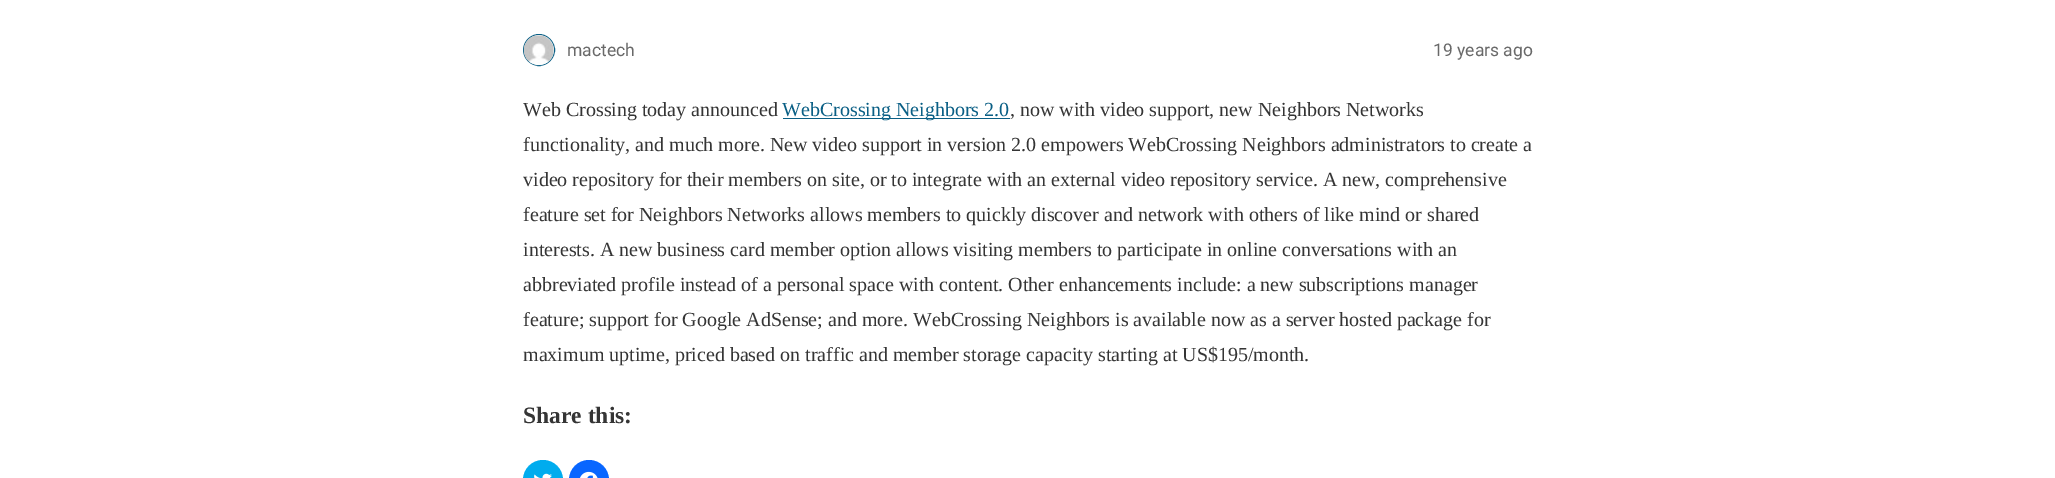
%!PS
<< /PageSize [2055 478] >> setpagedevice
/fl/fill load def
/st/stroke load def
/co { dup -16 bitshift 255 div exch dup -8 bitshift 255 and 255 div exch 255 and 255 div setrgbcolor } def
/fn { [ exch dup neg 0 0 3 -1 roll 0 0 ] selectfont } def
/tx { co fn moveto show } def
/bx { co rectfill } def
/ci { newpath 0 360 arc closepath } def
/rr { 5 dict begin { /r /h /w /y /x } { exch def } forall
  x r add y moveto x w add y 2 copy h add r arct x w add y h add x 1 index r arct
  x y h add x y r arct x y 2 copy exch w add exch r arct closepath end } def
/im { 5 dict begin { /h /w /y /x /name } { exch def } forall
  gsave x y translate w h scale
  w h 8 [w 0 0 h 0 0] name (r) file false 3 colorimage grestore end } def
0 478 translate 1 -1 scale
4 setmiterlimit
0 0 2055 478 16#FFFFFF bx
16#0A5F85 co
539 50 15.5 ci st
(media/1.raw) 523 35 31 31 im
783 118 227 1 16#0A5F85 bx
16#00ACEE co
523 460 40 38 20 rr fl
(media/2.raw) 534 473 18 5 im
16#0866FF co
569 460 40 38 20 rr fl
(media/3.raw) 580 471 18 7 im
(mactech) 567 56 /Roboto-Regular 17.5 16#696969 tx
(19 years ago) 1433 56 /Roboto-Regular 17.5 16#696969 tx
(Web Crossing today announced) 523 116 /LiberationSerif-Regular 20 16#353535 tx
(WebCrossing Neighbors 2.0) 782 116 /LiberationSerif-Regular 20 16#0A5F85 tx
(, now with video support, new Neighbors Networks) 1010 116 /LiberationSerif-Regular 20 16#353535 tx
(functionality, and much more. New video support in version 2.0 empowers WebCrossing Neighbors administrators to create a) 523 151 /LiberationSerif-Regular 20 16#353535 tx
(video repository for their members on site, or to integrate with an external video repository service. A new, comprehensive) 523 186 /LiberationSerif-Regular 20 16#353535 tx
(feature set for Neighbors Networks allows members to quickly discover and network with others of like mind or shared) 523 221 /LiberationSerif-Regular 20 16#353535 tx
(interests. A new business card member option allows visiting members to participate in online conversations with an) 523 256 /LiberationSerif-Regular 20 16#353535 tx
(abbreviated profile instead of a personal space with content. Other enhancements include: a new subscriptions manager) 523 291 /LiberationSerif-Regular 20 16#353535 tx
(feature; support for Google AdSense; and more. WebCrossing Neighbors is available now as a server hosted package for) 523 326 /LiberationSerif-Regular 20 16#353535 tx
(maximum uptime, priced based on traffic and member storage capacity starting at US$195/month.) 523 361 /LiberationSerif-Regular 20 16#353535 tx
(Share this:) 523 423 /LiberationSerif-Bold 23.5 16#353535 tx
showpage
